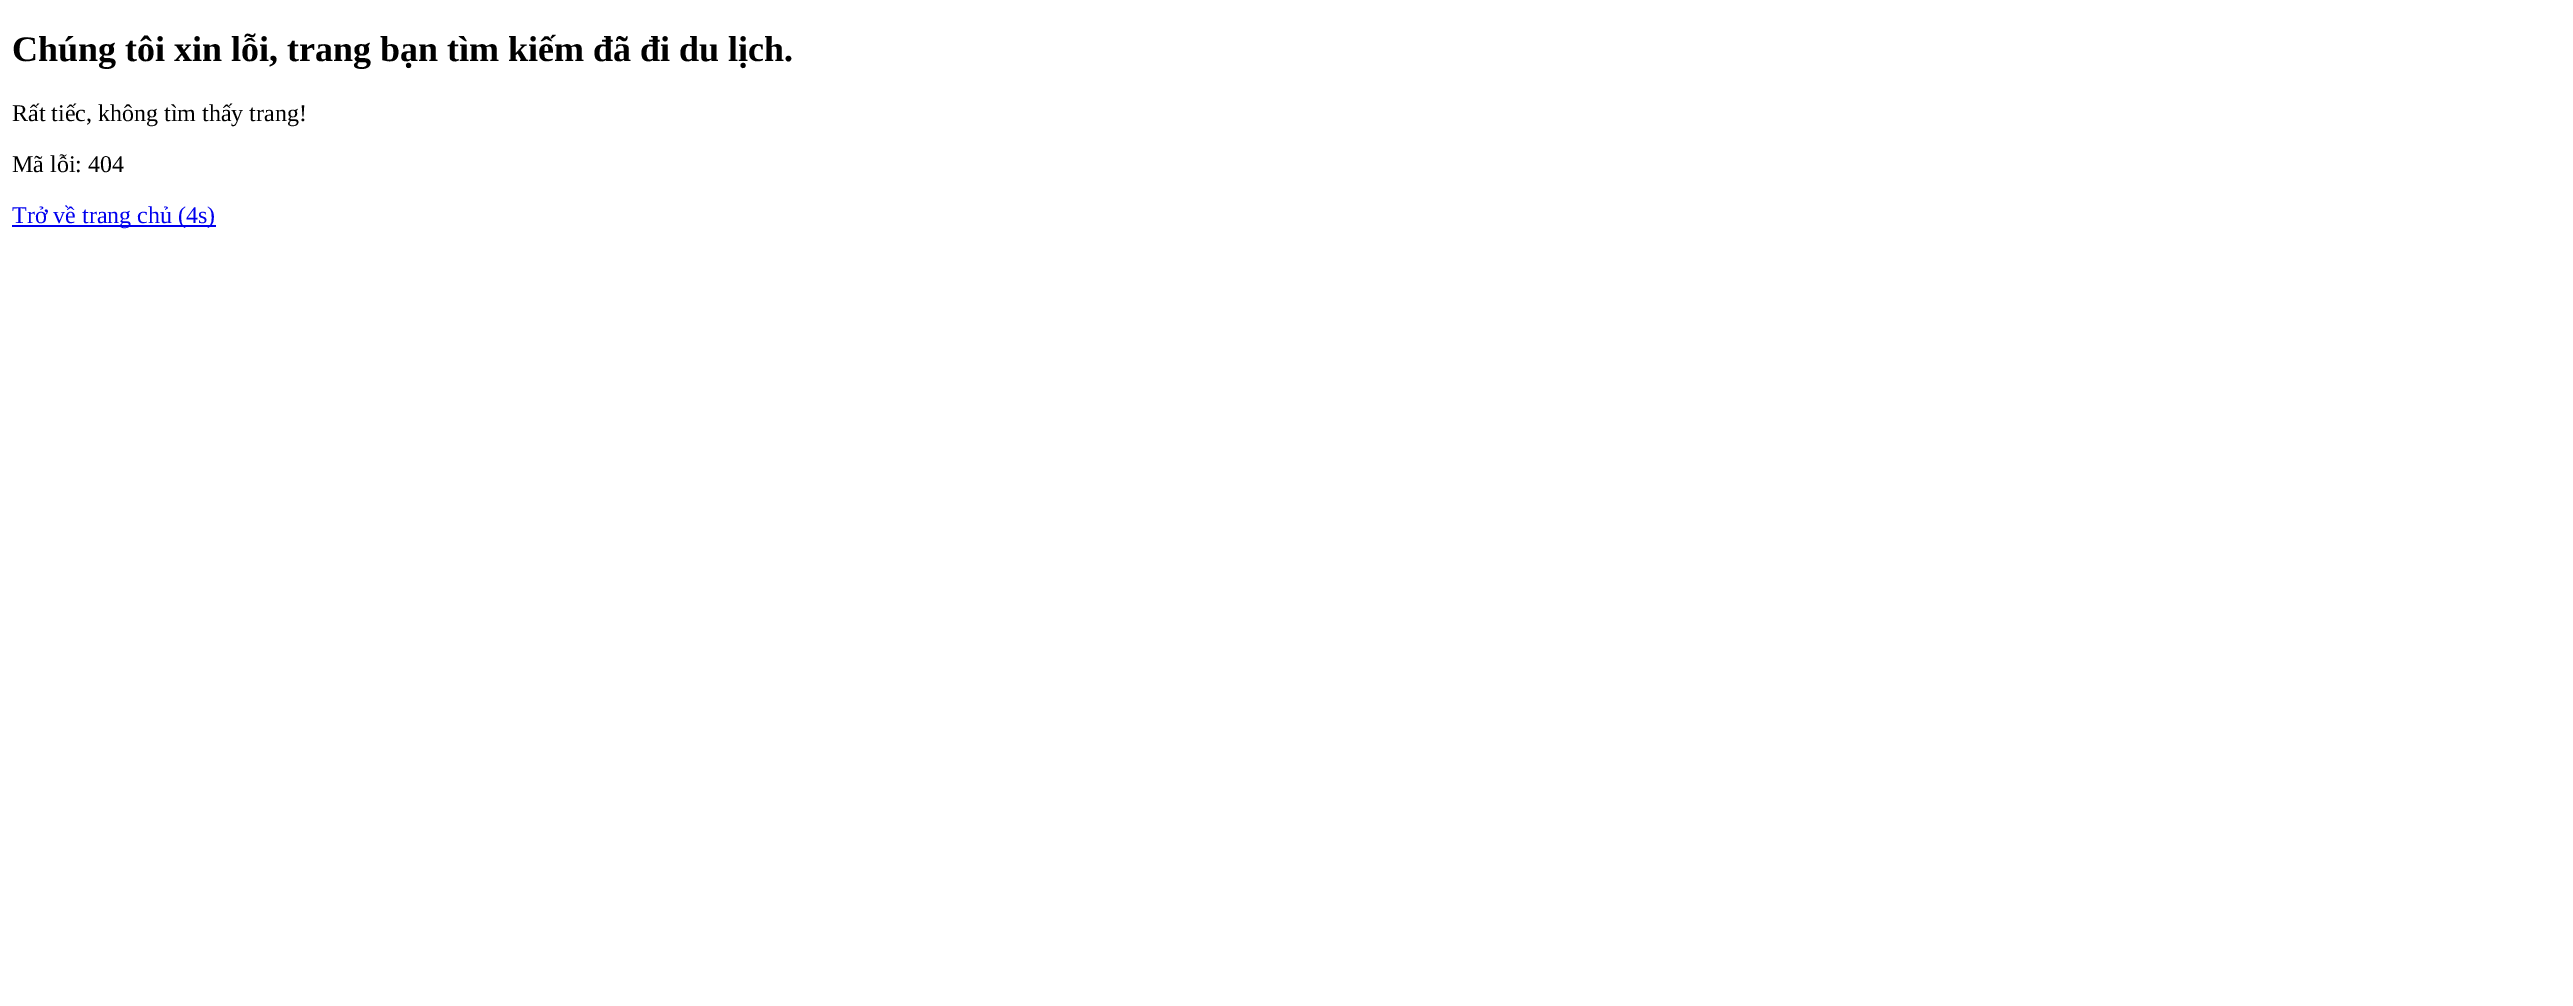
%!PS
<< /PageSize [2573 1006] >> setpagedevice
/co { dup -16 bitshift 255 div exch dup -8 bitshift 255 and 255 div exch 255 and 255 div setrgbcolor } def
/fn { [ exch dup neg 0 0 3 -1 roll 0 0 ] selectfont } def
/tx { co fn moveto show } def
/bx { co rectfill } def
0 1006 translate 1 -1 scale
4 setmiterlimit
0 0 2573 1006 16#FFFFFF bx
12 225 204 2 16#0000EE bx
(Chúng tôi xin lỗi, trang bạn tìm kiếm đã đi du lịch.) 12 61 /LiberationSerif-Bold 36 16#000000 tx
(Rất tiếc, không tìm thấy trang!) 12 121 /LiberationSerif-Regular 24 16#000000 tx
(Mã lỗi: 404) 12 172 /LiberationSerif-Regular 24 16#000000 tx
(Trở về trang chủ \(4s\)) 12 223 /LiberationSerif-Regular 24 16#0000EE tx
showpage
